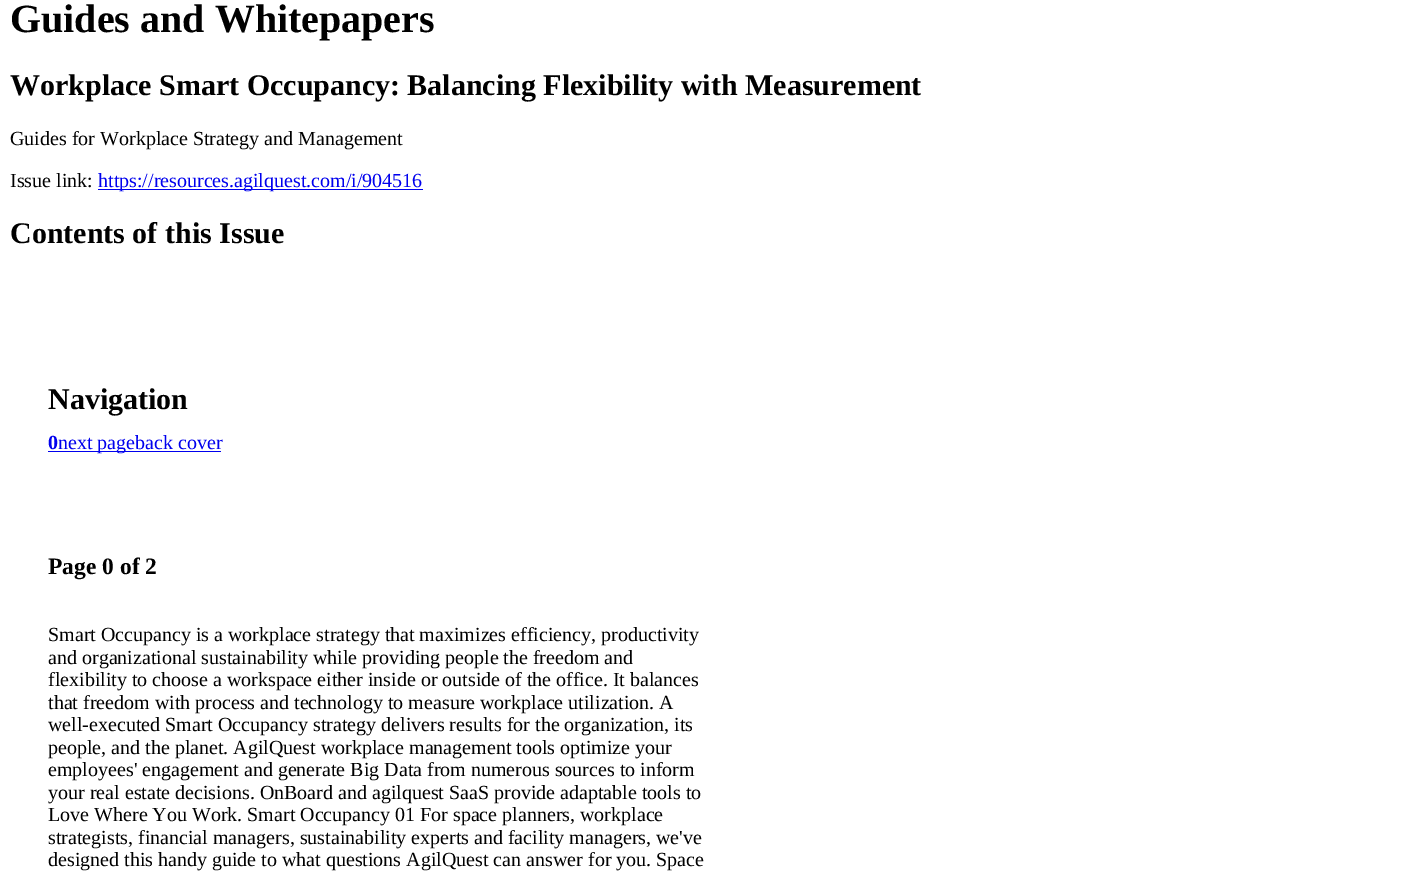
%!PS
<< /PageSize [1402 883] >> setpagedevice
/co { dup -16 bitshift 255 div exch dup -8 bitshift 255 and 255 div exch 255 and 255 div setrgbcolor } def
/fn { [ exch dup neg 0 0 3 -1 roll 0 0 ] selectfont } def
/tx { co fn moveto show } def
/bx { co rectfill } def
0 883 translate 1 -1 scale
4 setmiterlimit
0 0 1402 883 16#FFFFFF bx
98 189 325 1 16#0000EE bx
48 451 173 1 16#0000EE bx
(Guides and Whitepapers) 10 32 /LiberationSerif-Bold 40 16#000000 tx
(Workplace Smart Occupancy: Balancing Flexibility with Measurement) 10 95 /LiberationSerif-Bold 30 16#000000 tx
(Guides for Workplace Strategy and Management) 10 145 /LiberationSerif-Regular 20 16#000000 tx
(Issue link:) 10 187 /LiberationSerif-Regular 20 16#000000 tx
(https://resources.agilquest.com/i/904516) 98 187 /LiberationSerif-Regular 20 16#0000EE tx
(Contents of this Issue) 10 243 /LiberationSerif-Bold 30 16#000000 tx
(Navigation) 48 409 /LiberationSerif-Bold 30 16#000000 tx
(0) 48 449 /LiberationSerif-Bold 20 16#0000EE tx
(next pageback cover) 58 449 /LiberationSerif-Regular 20 16#0000EE tx
(Page 0 of 2) 48 574 /LiberationSerif-Bold 23.5 16#000000 tx
(Smart Occupancy is a workplace strategy that maximizes efficiency, productivity) 48 641 /LiberationSerif-Regular 20 16#000000 tx
(and organizational sustainability while providing people the freedom and) 48 664 /LiberationSerif-Regular 20 16#000000 tx
(flexibility to choose a workspace either inside or outside of the office. It balances) 48 686 /LiberationSerif-Regular 20 16#000000 tx
(that freedom with process and technology to measure workplace utilization. A) 48 709 /LiberationSerif-Regular 20 16#000000 tx
(well-executed Smart Occupancy strategy delivers results for the organization, its) 48 731 /LiberationSerif-Regular 20 16#000000 tx
(people, and the planet. AgilQuest workplace management tools optimize your) 48 754 /LiberationSerif-Regular 20 16#000000 tx
(employees' engagement and generate Big Data from numerous sources to inform) 48 776 /LiberationSerif-Regular 20 16#000000 tx
(your real estate decisions. OnBoard and agilquest SaaS provide adaptable tools to) 48 799 /LiberationSerif-Regular 20 16#000000 tx
(Love Where You Work. Smart Occupancy 01 For space planners, workplace) 48 821 /LiberationSerif-Regular 20 16#000000 tx
(strategists, financial managers, sustainability experts and facility managers, we've) 48 844 /LiberationSerif-Regular 20 16#000000 tx
(designed this handy guide to what questions AgilQuest can answer for you. Space) 48 866 /LiberationSerif-Regular 20 16#000000 tx
showpage
